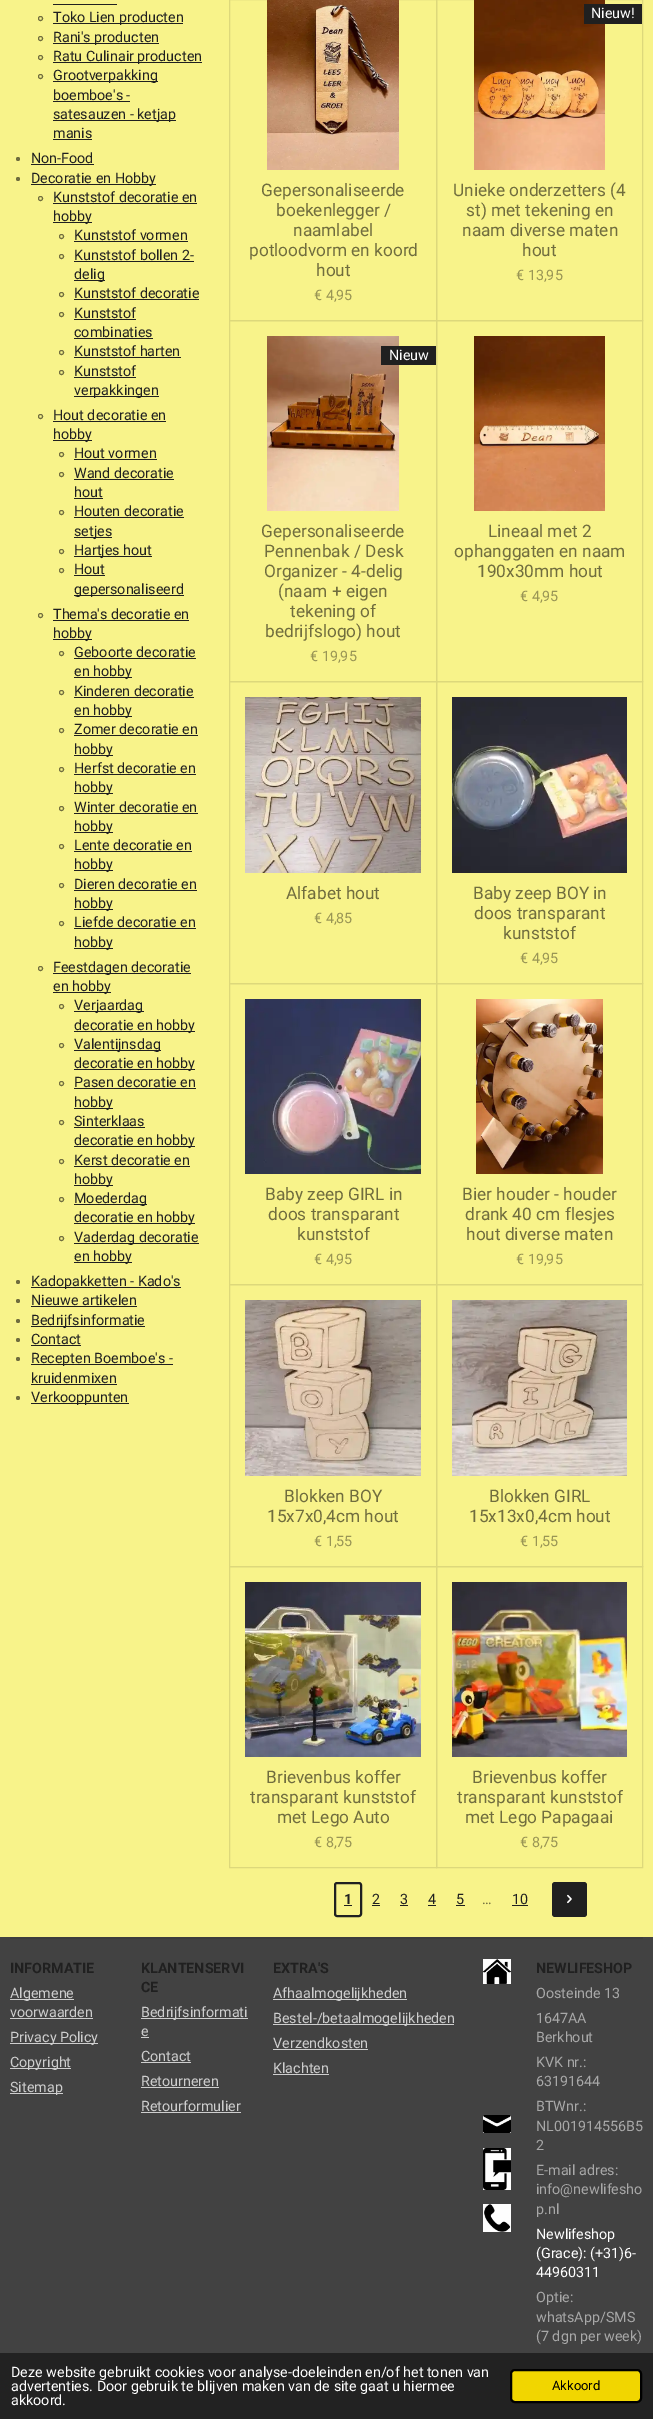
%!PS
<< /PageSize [653 2419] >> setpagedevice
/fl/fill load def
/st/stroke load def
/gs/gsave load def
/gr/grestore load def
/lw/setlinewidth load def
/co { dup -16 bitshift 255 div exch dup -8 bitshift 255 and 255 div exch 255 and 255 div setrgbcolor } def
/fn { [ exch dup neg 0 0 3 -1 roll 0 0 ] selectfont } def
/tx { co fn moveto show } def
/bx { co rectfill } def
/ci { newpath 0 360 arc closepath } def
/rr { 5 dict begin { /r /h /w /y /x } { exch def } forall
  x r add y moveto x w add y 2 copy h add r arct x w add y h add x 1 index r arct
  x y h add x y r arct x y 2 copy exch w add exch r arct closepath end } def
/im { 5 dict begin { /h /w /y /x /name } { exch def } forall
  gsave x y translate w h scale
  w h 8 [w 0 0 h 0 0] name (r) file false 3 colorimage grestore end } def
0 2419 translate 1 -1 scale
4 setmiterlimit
0 0 653 2419 16#F8F38A bx
53 4 64 1 16#202020 bx
16#706D3E co
40.5 18.5 2 ci st
53 23 130 1 16#202020 bx
16#706D3E co
40.5 38.5 2 ci st
53 43 106 1 16#202020 bx
16#706D3E co
40.5 57.5 2 ci st
53 62 149 1 16#202020 bx
16#706D3E co
40.5 76.5 2 ci st
53 81 105 1 16#202020 bx
53 101 77 1 16#202020 bx
53 120 123 1 16#202020 bx
53 139 39 1 16#202020 bx
16#706D3E co
18 159 2 ci fl
31 164 63 1 16#202020 bx
16#706D3E co
18 179 2 ci fl
31 184 125 1 16#202020 bx
16#706D3E co
40.5 198.5 2 ci st
53 203 144 1 16#202020 bx
53 222 39 1 16#202020 bx
16#706D3E co
61.5 236.5 2 ci st
74 241 114 1 16#202020 bx
16#706D3E co
61.5 256.5 2 ci st
74 261 120 1 16#202020 bx
74 280 31 1 16#202020 bx
16#706D3E co
61.5 294.5 2 ci st
74 299 125 1 16#202020 bx
16#706D3E co
61.5 314.5 2 ci st
74 319 62 1 16#202020 bx
74 338 79 1 16#202020 bx
16#706D3E co
61.5 352.5 2 ci st
74 357 107 1 16#202020 bx
16#706D3E co
61.5 372.5 2 ci st
74 377 62 1 16#202020 bx
74 396 85 1 16#202020 bx
16#706D3E co
40.5 416.5 2 ci st
53 421 113 1 16#202020 bx
53 440 39 1 16#202020 bx
16#706D3E co
61.5 454.5 2 ci st
74 459 83 1 16#202020 bx
16#706D3E co
61.5 474.5 2 ci st
74 479 100 1 16#202020 bx
74 498 29 1 16#202020 bx
16#706D3E co
61.5 512.5 2 ci st
74 517 110 1 16#202020 bx
74 537 38 1 16#202020 bx
16#706D3E co
61.5 551.5 2 ci st
74 556 78 1 16#202020 bx
16#706D3E co
61.5 570.5 2 ci st
74 575 31 1 16#202020 bx
74 595 110 1 16#202020 bx
16#706D3E co
40.5 615.5 2 ci st
53 620 136 1 16#202020 bx
53 639 39 1 16#202020 bx
16#706D3E co
61.5 653.5 2 ci st
74 658 122 1 16#202020 bx
74 677 58 1 16#202020 bx
16#706D3E co
61.5 692.5 2 ci st
74 697 120 1 16#202020 bx
74 716 58 1 16#202020 bx
16#706D3E co
61.5 730.5 2 ci st
74 735 124 1 16#202020 bx
74 755 39 1 16#202020 bx
16#706D3E co
61.5 769.5 2 ci st
74 774 122 1 16#202020 bx
74 793 39 1 16#202020 bx
16#706D3E co
61.5 808.5 2 ci st
74 813 124 1 16#202020 bx
74 832 39 1 16#202020 bx
16#706D3E co
61.5 846.5 2 ci st
74 851 118 1 16#202020 bx
74 870 39 1 16#202020 bx
16#706D3E co
61.5 885.5 2 ci st
74 890 123 1 16#202020 bx
74 909 39 1 16#202020 bx
16#706D3E co
61.5 923.5 2 ci st
74 928 122 1 16#202020 bx
74 948 39 1 16#202020 bx
16#706D3E co
40.5 968.5 2 ci st
53 973 138 1 16#202020 bx
53 992 58 1 16#202020 bx
16#706D3E co
61.5 1006.5 2 ci st
74 1011 70 1 16#202020 bx
74 1031 121 1 16#202020 bx
16#706D3E co
61.5 1045.5 2 ci st
74 1050 87 1 16#202020 bx
74 1069 121 1 16#202020 bx
16#706D3E co
61.5 1083.5 2 ci st
74 1088 122 1 16#202020 bx
74 1108 39 1 16#202020 bx
16#706D3E co
61.5 1122.5 2 ci st
74 1127 71 1 16#202020 bx
74 1146 121 1 16#202020 bx
16#706D3E co
61.5 1161.5 2 ci st
74 1166 116 1 16#202020 bx
74 1185 39 1 16#202020 bx
16#706D3E co
61.5 1199.5 2 ci st
74 1204 73 1 16#202020 bx
74 1223 121 1 16#202020 bx
16#706D3E co
61.5 1238.5 2 ci st
74 1243 125 1 16#202020 bx
74 1262 58 1 16#202020 bx
16#706D3E co
18 1282 2 ci fl
31 1287 150 1 16#202020 bx
16#706D3E co
18 1301 2 ci fl
31 1306 106 1 16#202020 bx
16#706D3E co
18 1321 2 ci fl
31 1326 114 1 16#202020 bx
16#706D3E co
18 1340 2 ci fl
31 1345 50 1 16#202020 bx
16#706D3E co
18 1359 2 ci fl
31 1364 142 1 16#202020 bx
31 1384 86 1 16#202020 bx
16#706D3E co
18 1398 2 ci fl
31 1403 98 1 16#202020 bx
16#DDD87B co
229.5 -.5 207 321 rectstroke
(media/1.raw) 267 0 132 170 im
436.5 -.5 206 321 rectstroke
(media/2.raw) 474 0 131 170 im
584 4 58 20 16#202020 bx
16#DDD87B co
229.5 320.5 207 361 rectstroke
(media/3.raw) 267 336 132 175 im
381 346 55 19 16#202020 bx
16#DDD87B co
436.5 320.5 206 361 rectstroke
(media/4.raw) 474 336 131 175 im
229.5 681.5 207 302 rectstroke
(media/5.raw) 245 697 176 176 im
436.5 681.5 206 302 rectstroke
(media/6.raw) 452 697 175 176 im
229.5 983.5 207 301 rectstroke
(media/7.raw) 245 999 176 175 im
436.5 983.5 206 301 rectstroke
(media/8.raw) 476 999 127 175 im
229.5 1284.5 207 282 rectstroke
(media/9.raw) 245 1300 176 176 im
436.5 1284.5 206 282 rectstroke
(media/10.raw) 452 1300 175 176 im
229.5 1566.5 207 301 rectstroke
(media/11.raw) 245 1582 176 175 im
436.5 1566.5 206 301 rectstroke
(media/12.raw) 452 1582 175 175 im
16#202020 co
2 lw
335 1883 26 33 2 rr st
344 1905 8 1 16#202020 bx
372 1905 8 1 16#202020 bx
400 1905 8 1 16#202020 bx
428 1905 8 1 16#202020 bx
456 1905 9 1 16#202020 bx
512 1905 16 1 16#202020 bx
552 1882 35 35 3 rr fl
(media/13.raw) 567 1894 5 10 im
0 1937 653 416 16#424242 bx
10 1937 633 2 16#3D3D3D bx
10 1999 64 1 16#CECECE bx
10 2018 83 1 16#CECECE bx
10 2043 88 1 16#CECECE bx
10 2068 61 1 16#CECECE bx
10 2093 53 1 16#CECECE bx
141 2018 107 1 16#CECECE bx
141 2037 8 1 16#CECECE bx
141 2062 50 1 16#CECECE bx
141 2087 78 1 16#CECECE bx
141 2112 100 1 16#CECECE bx
273 1999 134 1 16#CECECE bx
273 2024 181 1 16#CECECE bx
273 2049 95 1 16#CECECE bx
273 2074 56 1 16#CECECE bx
(media/14.raw) 483 1959 28 25 im
(media/15.raw) 483 2115 28 18 im
(media/16.raw) 483 2148 28 42 im
(media/17.raw) 483 2204 28 28 im
0 2353 653 66 16#222222 bx
16#F1D600 co
511 2370 130 32 4 rr gs fl gr
16#000000 co
st
(Toko Lien producten) 53 22 /Roboto-Regular 14.3 16#202020 tx
(Rani's producten) 53 42 /Roboto-Regular 14.3 16#202020 tx
(Ratu Culinair producten) 53 61 /Roboto-Regular 14.3 16#202020 tx
(Grootverpakking) 53 80 /Roboto-Regular 14.3 16#202020 tx
(boemboe's -) 53 100 /Roboto-Regular 14.3 16#202020 tx
(satesauzen - ketjap) 53 119 /Roboto-Regular 14.3 16#202020 tx
(manis) 53 138 /Roboto-Regular 14.3 16#202020 tx
(Non-Food) 31 163 /Roboto-Regular 14.3 16#202020 tx
(Decoratie en Hobby) 31 183 /Roboto-Regular 14.3 16#202020 tx
(Kunststof decoratie en) 53 202 /Roboto-Regular 14.3 16#202020 tx
(hobby) 53 221 /Roboto-Regular 14.3 16#202020 tx
(Kunststof vormen) 74 240 /Roboto-Regular 14.3 16#202020 tx
(Kunststof bollen 2-) 74 260 /Roboto-Regular 14.3 16#202020 tx
(delig) 74 279 /Roboto-Regular 14.3 16#202020 tx
(Kunststof decoratie) 74 298 /Roboto-Regular 14.3 16#202020 tx
(Kunststof) 74 318 /Roboto-Regular 14.3 16#202020 tx
(combinaties) 74 337 /Roboto-Regular 14.3 16#202020 tx
(Kunststof harten) 74 356 /Roboto-Regular 14.3 16#202020 tx
(Kunststof) 74 376 /Roboto-Regular 14.3 16#202020 tx
(verpakkingen) 74 395 /Roboto-Regular 14.3 16#202020 tx
(Hout decoratie en) 53 420 /Roboto-Regular 14.3 16#202020 tx
(hobby) 53 439 /Roboto-Regular 14.3 16#202020 tx
(Hout vormen) 74 458 /Roboto-Regular 14.3 16#202020 tx
(Wand decoratie) 74 478 /Roboto-Regular 14.3 16#202020 tx
(hout) 74 497 /Roboto-Regular 14.3 16#202020 tx
(Houten decoratie) 74 516 /Roboto-Regular 14.3 16#202020 tx
(setjes) 74 536 /Roboto-Regular 14.3 16#202020 tx
(Hartjes hout) 74 555 /Roboto-Regular 14.3 16#202020 tx
(Hout) 74 574 /Roboto-Regular 14.3 16#202020 tx
(gepersonaliseerd) 74 594 /Roboto-Regular 14.3 16#202020 tx
(Thema's decoratie en) 53 619 /Roboto-Regular 14.3 16#202020 tx
(hobby) 53 638 /Roboto-Regular 14.3 16#202020 tx
(Geboorte decoratie) 74 657 /Roboto-Regular 14.3 16#202020 tx
(en hobby) 74 676 /Roboto-Regular 14.3 16#202020 tx
(Kinderen decoratie) 74 696 /Roboto-Regular 14.3 16#202020 tx
(en hobby) 74 715 /Roboto-Regular 14.3 16#202020 tx
(Zomer decoratie en) 74 734 /Roboto-Regular 14.3 16#202020 tx
(hobby) 74 754 /Roboto-Regular 14.3 16#202020 tx
(Herfst decoratie en) 74 773 /Roboto-Regular 14.3 16#202020 tx
(hobby) 74 792 /Roboto-Regular 14.3 16#202020 tx
(Winter decoratie en) 74 812 /Roboto-Regular 14.3 16#202020 tx
(hobby) 74 831 /Roboto-Regular 14.3 16#202020 tx
(Lente decoratie en) 74 850 /Roboto-Regular 14.3 16#202020 tx
(hobby) 74 869 /Roboto-Regular 14.3 16#202020 tx
(Dieren decoratie en) 74 889 /Roboto-Regular 14.3 16#202020 tx
(hobby) 74 908 /Roboto-Regular 14.3 16#202020 tx
(Liefde decoratie en) 74 927 /Roboto-Regular 14.3 16#202020 tx
(hobby) 74 947 /Roboto-Regular 14.3 16#202020 tx
(Feestdagen decoratie) 53 972 /Roboto-Regular 14.3 16#202020 tx
(en hobby) 53 991 /Roboto-Regular 14.3 16#202020 tx
(Verjaardag) 74 1010 /Roboto-Regular 14.3 16#202020 tx
(decoratie en hobby) 74 1030 /Roboto-Regular 14.3 16#202020 tx
(Valentijnsdag) 74 1049 /Roboto-Regular 14.3 16#202020 tx
(decoratie en hobby) 74 1068 /Roboto-Regular 14.3 16#202020 tx
(Pasen decoratie en) 74 1087 /Roboto-Regular 14.3 16#202020 tx
(hobby) 74 1107 /Roboto-Regular 14.3 16#202020 tx
(Sinterklaas) 74 1126 /Roboto-Regular 14.3 16#202020 tx
(decoratie en hobby) 74 1145 /Roboto-Regular 14.3 16#202020 tx
(Kerst decoratie en) 74 1165 /Roboto-Regular 14.3 16#202020 tx
(hobby) 74 1184 /Roboto-Regular 14.3 16#202020 tx
(Moederdag) 74 1203 /Roboto-Regular 14.3 16#202020 tx
(decoratie en hobby) 74 1222 /Roboto-Regular 14.3 16#202020 tx
(Vaderdag decoratie) 74 1242 /Roboto-Regular 14.3 16#202020 tx
(en hobby) 74 1261 /Roboto-Regular 14.3 16#202020 tx
(Kadopakketten - Kado's) 31 1286 /Roboto-Regular 14.3 16#202020 tx
(Nieuwe artikelen) 31 1305 /Roboto-Regular 14.3 16#202020 tx
(Bedrijfsinformatie) 31 1325 /Roboto-Regular 14.3 16#202020 tx
(Contact) 31 1344 /Roboto-Regular 14.3 16#202020 tx
(Recepten Boemboe's -) 31 1363 /Roboto-Regular 14.3 16#202020 tx
(kruidenmixen) 31 1383 /Roboto-Regular 14.3 16#202020 tx
(Verkooppunten) 31 1402 /Roboto-Regular 14.3 16#202020 tx
(Gepersonaliseerde) 261 196 /Roboto-Regular 17.25 16#706D3E tx
(boekenlegger /) 276 216 /Roboto-Regular 17.25 16#706D3E tx
(naamlabel) 293 236 /Roboto-Regular 17.25 16#706D3E tx
(potloodvorm en koord) 249 256 /Roboto-Regular 17.25 16#706D3E tx
(hout) 316 276 /Roboto-Regular 17.25 16#706D3E tx
(€ 4,95) 314 300 /Roboto-Regular 14.3 16#999555 tx
(Nieuw!) 591 18 /Roboto-Regular 14.3 16#FFFFFF tx
(Unieke onderzetters \(4) 453 196 /Roboto-Regular 17.25 16#706D3E tx
(st\) met tekening en) 466 216 /Roboto-Regular 17.25 16#706D3E tx
(naam diverse maten) 462 236 /Roboto-Regular 17.25 16#706D3E tx
(hout) 522 256 /Roboto-Regular 17.25 16#706D3E tx
(€ 13,95) 516 280 /Roboto-Regular 14.3 16#999555 tx
(Nieuw) 389 360 /Roboto-Regular 14.3 16#FFFFFF tx
(Gepersonaliseerde) 261 537 /Roboto-Regular 17.25 16#706D3E tx
(Pennenbak / Desk) 264 557 /Roboto-Regular 17.25 16#706D3E tx
(Organizer - 4-delig) 264 577 /Roboto-Regular 17.25 16#706D3E tx
(\(naam + eigen) 278 597 /Roboto-Regular 17.25 16#706D3E tx
(tekening of) 290 617 /Roboto-Regular 17.25 16#706D3E tx
(bedrijfslogo\) hout) 265 637 /Roboto-Regular 17.25 16#706D3E tx
(€ 19,95) 310 661 /Roboto-Regular 14.3 16#999555 tx
(Lineaal met 2) 488 537 /Roboto-Regular 17.25 16#706D3E tx
(ophanggaten en naam) 454 557 /Roboto-Regular 17.25 16#706D3E tx
(190x30mm hout) 477 577 /Roboto-Regular 17.25 16#706D3E tx
(€ 4,95) 520 601 /Roboto-Regular 14.3 16#999555 tx
(Alfabet hout) 286 899 /Roboto-Regular 17.25 16#706D3E tx
(€ 4,85) 314 923 /Roboto-Regular 14.3 16#999555 tx
(Baby zeep BOY in) 473 899 /Roboto-Regular 17.25 16#706D3E tx
(doos transparant) 474 919 /Roboto-Regular 17.25 16#706D3E tx
(kunststof) 503 939 /Roboto-Regular 17.25 16#706D3E tx
(€ 4,95) 520 963 /Roboto-Regular 14.3 16#999555 tx
(Baby zeep GIRL in) 265 1200 /Roboto-Regular 17.25 16#706D3E tx
(doos transparant) 268 1220 /Roboto-Regular 17.25 16#706D3E tx
(kunststof) 297 1240 /Roboto-Regular 17.25 16#706D3E tx
(€ 4,95) 314 1264 /Roboto-Regular 14.3 16#999555 tx
(Bier houder - houder) 462 1200 /Roboto-Regular 17.25 16#706D3E tx
(drank 40 cm flesjes) 465 1220 /Roboto-Regular 17.25 16#706D3E tx
(hout diverse maten) 466 1240 /Roboto-Regular 17.25 16#706D3E tx
(€ 19,95) 516 1264 /Roboto-Regular 14.3 16#999555 tx
(Blokken BOY) 284 1502 /Roboto-Regular 17.25 16#706D3E tx
(15x7x0,4cm hout) 267 1522 /Roboto-Regular 17.25 16#706D3E tx
(€ 1,55) 314 1546 /Roboto-Regular 14.3 16#999555 tx
(Blokken GIRL) 489 1502 /Roboto-Regular 17.25 16#706D3E tx
(15x13x0,4cm hout) 469 1522 /Roboto-Regular 17.25 16#706D3E tx
(€ 1,55) 520 1546 /Roboto-Regular 14.3 16#999555 tx
(Brievenbus koffer) 266 1783 /Roboto-Regular 17.25 16#706D3E tx
(transparant kunststof) 250 1803 /Roboto-Regular 17.25 16#706D3E tx
(met Lego Auto) 277 1823 /Roboto-Regular 17.25 16#706D3E tx
(€ 8,75) 314 1847 /Roboto-Regular 14.3 16#999555 tx
(Brievenbus koffer) 472 1783 /Roboto-Regular 17.25 16#706D3E tx
(transparant kunststof) 457 1803 /Roboto-Regular 17.25 16#706D3E tx
(met Lego Papagaai) 465 1823 /Roboto-Regular 17.25 16#706D3E tx
(€ 8,75) 520 1847 /Roboto-Regular 14.3 16#999555 tx
(1) 344 1904 /Roboto-Bold 14.3 16#202020 tx
(2) 372 1904 /Roboto-Regular 14.3 16#202020 tx
(3) 400 1904 /Roboto-Regular 14.3 16#202020 tx
(4) 428 1904 /Roboto-Regular 14.3 16#202020 tx
(5) 456 1904 /Roboto-Regular 14.3 16#202020 tx
(…) 482 1904 /Roboto-Regular 14.3 16#706D3E tx
(10) 512 1904 /Roboto-Regular 14.3 16#202020 tx
(INFORMATIE) 10 1973 /Roboto-Bold 14.3 16#202020 tx
(Algemene) 10 1998 /Roboto-Regular 14.3 16#CECECE tx
(voorwaarden) 10 2017 /Roboto-Regular 14.3 16#CECECE tx
(Privacy Policy) 10 2042 /Roboto-Regular 14.3 16#CECECE tx
(Copyright) 10 2067 /Roboto-Regular 14.3 16#CECECE tx
(Sitemap) 10 2092 /Roboto-Regular 14.3 16#CECECE tx
(KLANTENSERVI) 141 1973 /Roboto-Bold 14.3 16#202020 tx
(CE) 141 1992 /Roboto-Bold 14.3 16#202020 tx
(Bedrijfsinformati) 141 2017 /Roboto-Regular 14.3 16#CECECE tx
(e) 141 2036 /Roboto-Regular 14.3 16#CECECE tx
(Contact) 141 2061 /Roboto-Regular 14.3 16#CECECE tx
(Retourneren) 141 2086 /Roboto-Regular 14.3 16#CECECE tx
(Retourformulier) 141 2111 /Roboto-Regular 14.3 16#CECECE tx
(EXTRA'S) 273 1973 /Roboto-Bold 14.3 16#202020 tx
(Afhaalmogelijkheden) 273 1998 /Roboto-Regular 14.3 16#CECECE tx
(Bestel-/betaalmogelijkheden) 273 2023 /Roboto-Regular 14.3 16#CECECE tx
(Verzendkosten) 273 2048 /Roboto-Regular 14.3 16#CECECE tx
(Klachten) 273 2073 /Roboto-Regular 14.3 16#CECECE tx
(NEWLIFESHOP) 536 1973 /Roboto-Bold 14.3 16#202020 tx
(Oosteinde 13) 536 1998 /Roboto-Regular 14.3 16#A8A8A8 tx
(1647AA) 536 2023 /Roboto-Regular 14.3 16#A8A8A8 tx
(Berkhout) 536 2042 /Roboto-Regular 14.3 16#A8A8A8 tx
(KVK nr.:) 536 2067 /Roboto-Regular 14.3 16#A8A8A8 tx
(63191644) 536 2086 /Roboto-Regular 14.3 16#A8A8A8 tx
(BTWnr.:) 536 2111 /Roboto-Regular 14.3 16#A8A8A8 tx
(NL001914556B5) 536 2131 /Roboto-Regular 14.3 16#A8A8A8 tx
(2) 536 2150 /Roboto-Regular 14.3 16#A8A8A8 tx
(E-mail adres:) 536 2175 /Roboto-Regular 14.3 16#A8A8A8 tx
(info@newlifesho) 536 2194 /Roboto-Regular 14.3 16#A8A8A8 tx
(p.nl) 536 2214 /Roboto-Regular 14.3 16#A8A8A8 tx
(Newlifeshop) 536 2239 /Roboto-Regular 14.3 16#FFFFFF tx
(\(Grace\): \(+31\)6-) 536 2258 /Roboto-Regular 14.3 16#FFFFFF tx
(44960311) 536 2277 /Roboto-Regular 14.3 16#FFFFFF tx
(Optie:) 536 2302 /Roboto-Regular 14.3 16#A8A8A8 tx
(whatsApp/SMS) 536 2322 /Roboto-Regular 14.3 16#A8A8A8 tx
(\(7 dgn per week\)) 536 2341 /Roboto-Regular 14.3 16#A8A8A8 tx
(Deze website gebruikt cookies voor analyse-doeleinden en/of het tonen van) 11 2377 /Roboto-Regular 14.3 16#FFFFFF tx
(advertenties. Door gebruik te blijven maken van de site gaat u hiermee) 11 2391 /Roboto-Regular 14.3 16#FFFFFF tx
(akkoord.) 11 2405 /Roboto-Regular 14.3 16#FFFFFF tx
(Akkoord) 552 2390 /Roboto-Regular 13 16#000000 tx
showpage
